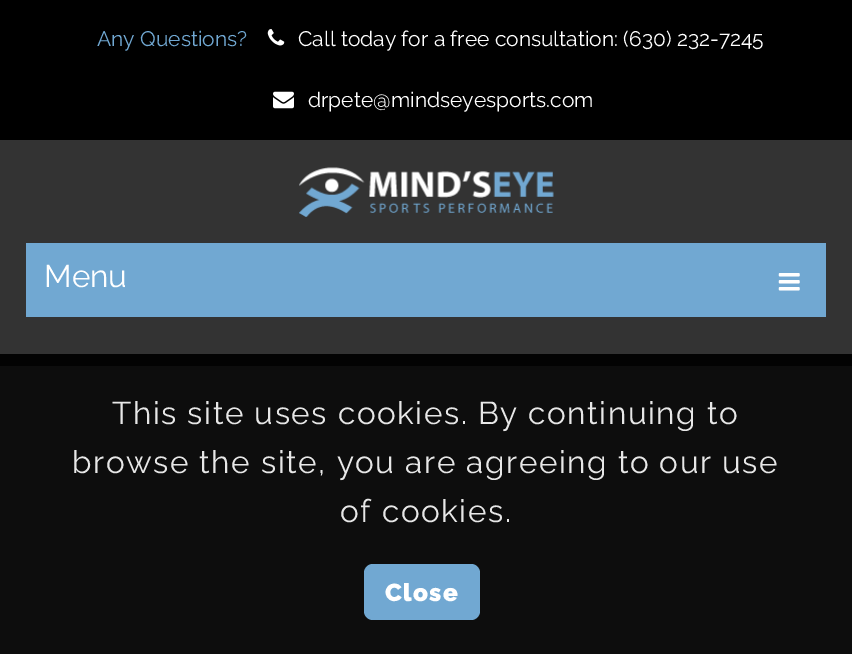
%!PS
<< /PageSize [852 654] >> setpagedevice
/mt/moveto load def
/fl/fill load def
/co { dup -16 bitshift 255 div exch dup -8 bitshift 255 and 255 div exch 255 and 255 div setrgbcolor } def
/fn { [ exch dup neg 0 0 3 -1 roll 0 0 ] selectfont } def
/tx { co fn moveto show } def
/bx { co rectfill } def
/rr { 5 dict begin { /r /h /w /y /x } { exch def } forall
  x r add y moveto x w add y 2 copy h add r arct x w add y h add x 1 index r arct
  x y h add x y r arct x y 2 copy exch w add exch r arct closepath end } def
/im { 5 dict begin { /h /w /y /x /name } { exch def } forall
  gsave x y translate w h scale
  w h 8 [w 0 0 h 0 0] name (r) file false 3 colorimage grestore end } def
0 654 translate 1 -1 scale
4 setmiterlimit
0 0 852 654 16#0D0D0D bx
0 140 852 214 16#333333 bx
0 354 852 12 16#030303 bx
0 0 852 140 16#000000 bx
(media/1.raw) 267 29 18 17 im
(media/2.raw) 273 91 21 18 im
(media/3.raw) 299 167 255 50 im
26 243 800 74 16#71A8D2 bx
(media/4.raw) 778 273 22 18 im
364 564 116 56 9 rr fl
(Any Questions?) 97 46 /Raleway-Thin 21 16#71A8D2 tx
(Call today for a free consultation: \(630\) 232-7245) 298 46 /Raleway-Thin 21 16#FFFFFF tx
(drpete@mindseyesports.com) 308 107 /Raleway-Thin 21 16#FFFFFF tx
(Menu) 44 287 /Raleway-Thin 31.5 16#FFFFFF tx
16#E7E7E7 co
112 424 mt 1.55 0 (This site uses cookies. By continuing to) ashow
72 473 mt 1.55 0 (browse the site, you are agreeing to our use) ashow
340 522 mt 1.55 0 (of cookies.) ashow
/Raleway-Black 24.5 fn
16#FFFFFF co
385 601 mt 1.25 0 (Close) ashow
showpage
